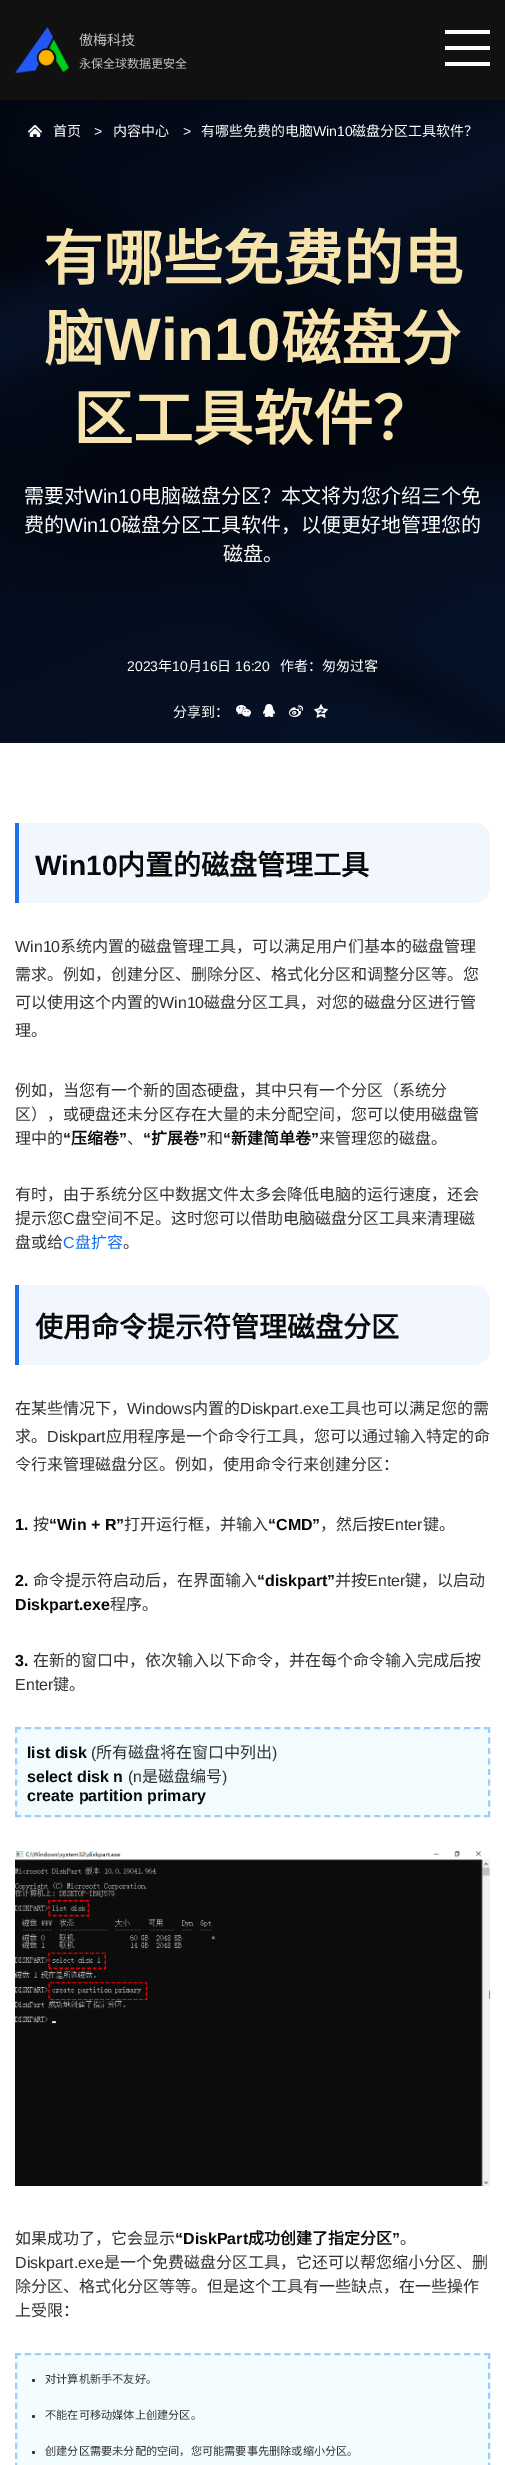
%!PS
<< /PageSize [505 2465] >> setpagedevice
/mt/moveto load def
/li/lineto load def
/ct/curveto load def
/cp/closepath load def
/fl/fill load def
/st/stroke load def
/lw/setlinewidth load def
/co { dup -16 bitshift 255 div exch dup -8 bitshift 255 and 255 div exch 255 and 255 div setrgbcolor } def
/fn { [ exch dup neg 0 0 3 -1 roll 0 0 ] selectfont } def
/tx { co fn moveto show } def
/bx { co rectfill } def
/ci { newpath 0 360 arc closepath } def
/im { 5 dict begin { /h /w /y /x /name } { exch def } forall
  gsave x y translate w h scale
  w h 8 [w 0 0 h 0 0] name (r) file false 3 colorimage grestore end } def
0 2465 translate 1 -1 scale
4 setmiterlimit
0 0 505 2465 16#FFFFFF bx
0 0 505 100 16#111111 bx
(media/1.raw) 15 27 54 46 im
445 30 45 4 16#FFFFFF bx
445 46 45 4 16#FFFFFF bx
445 62 45 4 16#FFFFFF bx
(media/2.raw) 0 100 505 643 im
(media/3.raw) 28 125 14 12 im
(media/4.raw) 236 705 15 12 im
(media/5.raw) 263 704 12 13 im
(media/6.raw) 289 705 14 12 im
(media/7.raw) 314 704 14 14 im
16#F2F6FF co
15 823 mt 474 823 li 483 823 490 830 490 839 ct 490 887 li 490 896 483 903 474 903 ct 15 903 li cp fl
15 823 4 80 16#1D70EC bx
16#F2F6FF co
15 1285 mt 474 1285 li 483 1285 490 1292 490 1301 ct 490 1349 li 490 1358 483 1365 474 1365 ct 15 1365 li cp fl
15 1285 4 80 16#1D70EC bx
15 1727 475 90 16#F2FCFF bx
16#9BCEFD co
2 lw
[6 3.98] 0 setdash
15 1728 mt 490 1728 li st
[6 4.5] 0 setdash
489 1727 mt 489 1817 li st
[6 3.98] 0 setdash
15 1816 mt 490 1816 li st
[6 4.5] 0 setdash
16 1727 mt 16 1817 li st
(media/8.raw) 15 1850 475 336 im
15 2353 475 112 16#F3FCFE bx
16#9BCEFD co
[6 3.98] 0 setdash
15 2354 mt 490 2354 li st
[6 4] 0 setdash
489 2353 mt 489 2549 li st
16 2353 mt 16 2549 li st
16#333333 co
33.5 2380.5 1.5 ci fl
33.5 2416.5 1.5 ci fl
33.5 2452.5 1.5 ci fl
(傲梅科技) 79 45 /NotoSansCJKSC-Regular 14 16#C3C3C3 tx
(永保全球数据更安全) 79 68 /NotoSansCJKSC-Regular 12 16#C3C3C3 tx
(首页) 53 136 /NotoSansCJKSC-Regular 14 16#FFFFFF tx
(>) 94 136 /LiberationSans-Regular 14 16#FFFFFF tx
(内容中心) 113 136 /NotoSansCJKSC-Regular 14 16#FFFFFF tx
(>) 183 136 /LiberationSans-Regular 14 16#FFFFFF tx
(有哪些免费的电脑) 201 136 /NotoSansCJKSC-Regular 14 16#FFFFFF tx
(Win10) 313 136 /LiberationSans-Regular 14 16#FFFFFF tx
(磁盘分区工具软件？) 352 136 /NotoSansCJKSC-Regular 14 16#FFFFFF tx
(有哪些免费的电) 43 280 /NotoSansCJKSC-Bold 60 16#F7E3AC tx
(脑) 44 360 /NotoSansCJKSC-Bold 60 16#F7E3AC tx
(Win10) 104 360 /LiberationSans-Bold 60 16#F7E3AC tx
(磁盘分) 281 360 /NotoSansCJKSC-Bold 60 16#F7E3AC tx
(区工具软件？) 73 440 /NotoSansCJKSC-Bold 60 16#F7E3AC tx
(需要对) 24 503 /NotoSansCJKSC-Regular 20 16#FFFFFF tx
(Win10) 84 503 /LiberationSans-Regular 20 16#FFFFFF tx
(电脑磁盘分区？本文将为您介绍三个免) 141 503 /NotoSansCJKSC-Regular 20 16#FFFFFF tx
(费的) 24 532 /NotoSansCJKSC-Regular 20 16#FFFFFF tx
(Win10) 64 532 /LiberationSans-Regular 20 16#FFFFFF tx
(磁盘分区工具软件，以便更好地管理您的) 121 532 /NotoSansCJKSC-Regular 20 16#FFFFFF tx
(磁盘。) 223 561 /NotoSansCJKSC-Regular 20 16#FFFFFF tx
(2023) 127 671 /LiberationSans-Regular 14 16#FFFFFF tx
(年) 158 671 /NotoSansCJKSC-Regular 14 16#FFFFFF tx
(10) 172 671 /LiberationSans-Regular 14 16#FFFFFF tx
(月) 188 671 /NotoSansCJKSC-Regular 14 16#FFFFFF tx
(16) 202 671 /LiberationSans-Regular 14 16#FFFFFF tx
(日) 217 671 /NotoSansCJKSC-Regular 14 16#FFFFFF tx
(16:20) 235 671 /LiberationSans-Regular 14 16#FFFFFF tx
(作者：匆匆过客) 280 671 /NotoSansCJKSC-Regular 14 16#FFFFFF tx
(分享到：) 173 717 /NotoSansCJKSC-Regular 14 16#FFFFFF tx
(Win10) 35 875 /LiberationSans-Bold 28 16#0A0A0A tx
(内置的磁盘管理工具) 117 875 /NotoSansCJKSC-Bold 28 16#0A0A0A tx
(Win10) 15 952 /LiberationSans-Regular 16 16#333333 tx
(系统内置的磁盘管理工具，可以满足用户们基本的磁盘管理) 60 952 /NotoSansCJKSC-Regular 16 16#333333 tx
(需求。例如，创建分区、删除分区、格式化分区和调整分区等。您) 15 980 /NotoSansCJKSC-Regular 16 16#333333 tx
(可以使用这个内置的) 15 1008 /NotoSansCJKSC-Regular 16 16#333333 tx
(Win10) 159 1008 /LiberationSans-Regular 16 16#333333 tx
(磁盘分区工具，对您的磁盘分区进行管) 204 1008 /NotoSansCJKSC-Regular 16 16#333333 tx
(理。) 15 1036 /NotoSansCJKSC-Regular 16 16#333333 tx
(例如，当您有一个新的固态硬盘，其中只有一个分区（系统分) 15 1096 /NotoSansCJKSC-Regular 16 16#333333 tx
(区），或硬盘还未分区存在大量的未分配空间，您可以使用磁盘管) 15 1120 /NotoSansCJKSC-Regular 16 16#333333 tx
(理中的) 15 1144 /NotoSansCJKSC-Regular 16 16#333333 tx
(“) 63 1144 /LiberationSans-Bold 16 16#0A0A0A tx
(压缩卷) 71 1144 /NotoSansCJKSC-Bold 16 16#0A0A0A tx
(”) 119 1144 /LiberationSans-Bold 16 16#0A0A0A tx
(“) 143 1144 /LiberationSans-Bold 16 16#0A0A0A tx
(扩展卷) 151 1144 /NotoSansCJKSC-Bold 16 16#0A0A0A tx
(”) 199 1144 /LiberationSans-Bold 16 16#0A0A0A tx
(和) 207 1144 /NotoSansCJKSC-Regular 16 16#333333 tx
(“) 223 1144 /LiberationSans-Bold 16 16#0A0A0A tx
(新建简单卷) 231 1144 /NotoSansCJKSC-Bold 16 16#0A0A0A tx
(”) 311 1144 /LiberationSans-Bold 16 16#0A0A0A tx
(来管理您的磁盘。) 319 1144 /NotoSansCJKSC-Regular 16 16#333333 tx
(、) 127 1144 /NotoSansCJKSC-Regular 16 16#333333 tx
(有时，由于系统分区中数据文件太多会降低电脑的运行速度，还会) 15 1200 /NotoSansCJKSC-Regular 16 16#333333 tx
(提示您) 15 1224 /NotoSansCJKSC-Regular 16 16#333333 tx
(C) 63 1224 /LiberationSans-Regular 16 16#333333 tx
(盘空间不足。这时您可以借助电脑磁盘分区工具来清理磁) 75 1224 /NotoSansCJKSC-Regular 16 16#333333 tx
(盘或给) 15 1248 /NotoSansCJKSC-Regular 16 16#333333 tx
(C) 63 1248 /LiberationSans-Regular 16 16#1D70EC tx
(盘扩容) 75 1248 /NotoSansCJKSC-Regular 16 16#1D70EC tx
(。) 123 1248 /NotoSansCJKSC-Regular 16 16#333333 tx
(使用命令提示符管理磁盘分区) 35 1337 /NotoSansCJKSC-Bold 28 16#0A0A0A tx
(在某些情况下，) 15 1414 /NotoSansCJKSC-Regular 16 16#333333 tx
(Windows) 127 1414 /LiberationSans-Regular 16 16#333333 tx
(内置的) 192 1414 /NotoSansCJKSC-Regular 16 16#333333 tx
(Diskpart.exe) 240 1414 /LiberationSans-Regular 16 16#333333 tx
(工具也可以满足您的需) 329 1414 /NotoSansCJKSC-Regular 16 16#333333 tx
(求。) 15 1442 /NotoSansCJKSC-Regular 16 16#333333 tx
(Diskpart) 47 1442 /LiberationSans-Regular 16 16#333333 tx
(应用程序是一个命令行工具，您可以通过输入特定的命) 106 1442 /NotoSansCJKSC-Regular 16 16#333333 tx
(令行来管理磁盘分区。例如，使用命令行来创建分区：) 15 1470 /NotoSansCJKSC-Regular 16 16#333333 tx
(1.) 15 1530 /LiberationSans-Bold 16 16#0A0A0A tx
(按) 33 1530 /NotoSansCJKSC-Regular 16 16#333333 tx
(“Win + R”) 49 1530 /LiberationSans-Bold 16 16#0A0A0A tx
(打开运行框，并输入) 124 1530 /NotoSansCJKSC-Regular 16 16#333333 tx
(“CMD”) 268 1530 /LiberationSans-Bold 16 16#0A0A0A tx
(，然后按) 320 1530 /NotoSansCJKSC-Regular 16 16#333333 tx
(Enter) 384 1530 /LiberationSans-Regular 16 16#333333 tx
(键。) 423 1530 /NotoSansCJKSC-Regular 16 16#333333 tx
(2.) 15 1586 /LiberationSans-Bold 16 16#0A0A0A tx
(命令提示符启动后，在界面输入) 33 1586 /NotoSansCJKSC-Regular 16 16#333333 tx
(“diskpart”) 257 1586 /LiberationSans-Bold 16 16#0A0A0A tx
(并按) 335 1586 /NotoSansCJKSC-Regular 16 16#333333 tx
(Enter) 367 1586 /LiberationSans-Regular 16 16#333333 tx
(键，以启动) 405 1586 /NotoSansCJKSC-Regular 16 16#333333 tx
(Diskpart.exe) 15 1610 /LiberationSans-Bold 16 16#0A0A0A tx
(程序。) 110 1610 /NotoSansCJKSC-Regular 16 16#333333 tx
(3.) 15 1666 /LiberationSans-Bold 16 16#0A0A0A tx
(在新的窗口中，依次输入以下命令，并在每个命令输入完成后按) 33 1666 /NotoSansCJKSC-Regular 16 16#333333 tx
(Enter) 15 1690 /LiberationSans-Regular 16 16#333333 tx
(键。) 53 1690 /NotoSansCJKSC-Regular 16 16#333333 tx
(list disk) 27 1758 /LiberationSans-Bold 16 16#0A0A0A tx
(\() 91 1758 /LiberationSans-Regular 16 16#333333 tx
(所有磁盘将在窗口中列出) 96 1758 /NotoSansCJKSC-Regular 16 16#333333 tx
(\)) 272 1758 /LiberationSans-Regular 16 16#333333 tx
(select disk n) 27 1782 /LiberationSans-Bold 16 16#0A0A0A tx
(\(n) 128 1782 /LiberationSans-Regular 16 16#333333 tx
(是磁盘编号) 142 1782 /NotoSansCJKSC-Regular 16 16#333333 tx
(\)) 222 1782 /LiberationSans-Regular 16 16#333333 tx
(create partition primary) 27 1801 /LiberationSans-Bold 16 16#0A0A0A tx
(如果成功了，它会显示) 15 2244 /NotoSansCJKSC-Regular 16 16#333333 tx
(“DiskPart) 175 2244 /LiberationSans-Bold 16 16#0A0A0A tx
(成功创建了指定分区) 248 2244 /NotoSansCJKSC-Bold 16 16#0A0A0A tx
(”) 392 2244 /LiberationSans-Bold 16 16#0A0A0A tx
(。) 400 2244 /NotoSansCJKSC-Regular 16 16#333333 tx
(Diskpart.exe) 15 2268 /LiberationSans-Regular 16 16#333333 tx
(是一个免费磁盘分区工具，它还可以帮您缩小分区、删) 104 2268 /NotoSansCJKSC-Regular 16 16#333333 tx
(除分区、格式化分区等等。但是这个工具有一些缺点，在一些操作) 15 2292 /NotoSansCJKSC-Regular 16 16#333333 tx
(上受限：) 15 2316 /NotoSansCJKSC-Regular 16 16#333333 tx
(对计算机新手不友好。) 45 2383 /NotoSansCJKSC-Regular 11.2 16#333333 tx
(不能在可移动媒体上创建分区。) 45 2419 /NotoSansCJKSC-Regular 11.2 16#333333 tx
(创建分区需要未分配的空间，您可能需要事先删除或缩小分区。) 45 2455 /NotoSansCJKSC-Regular 11.2 16#333333 tx
showpage
